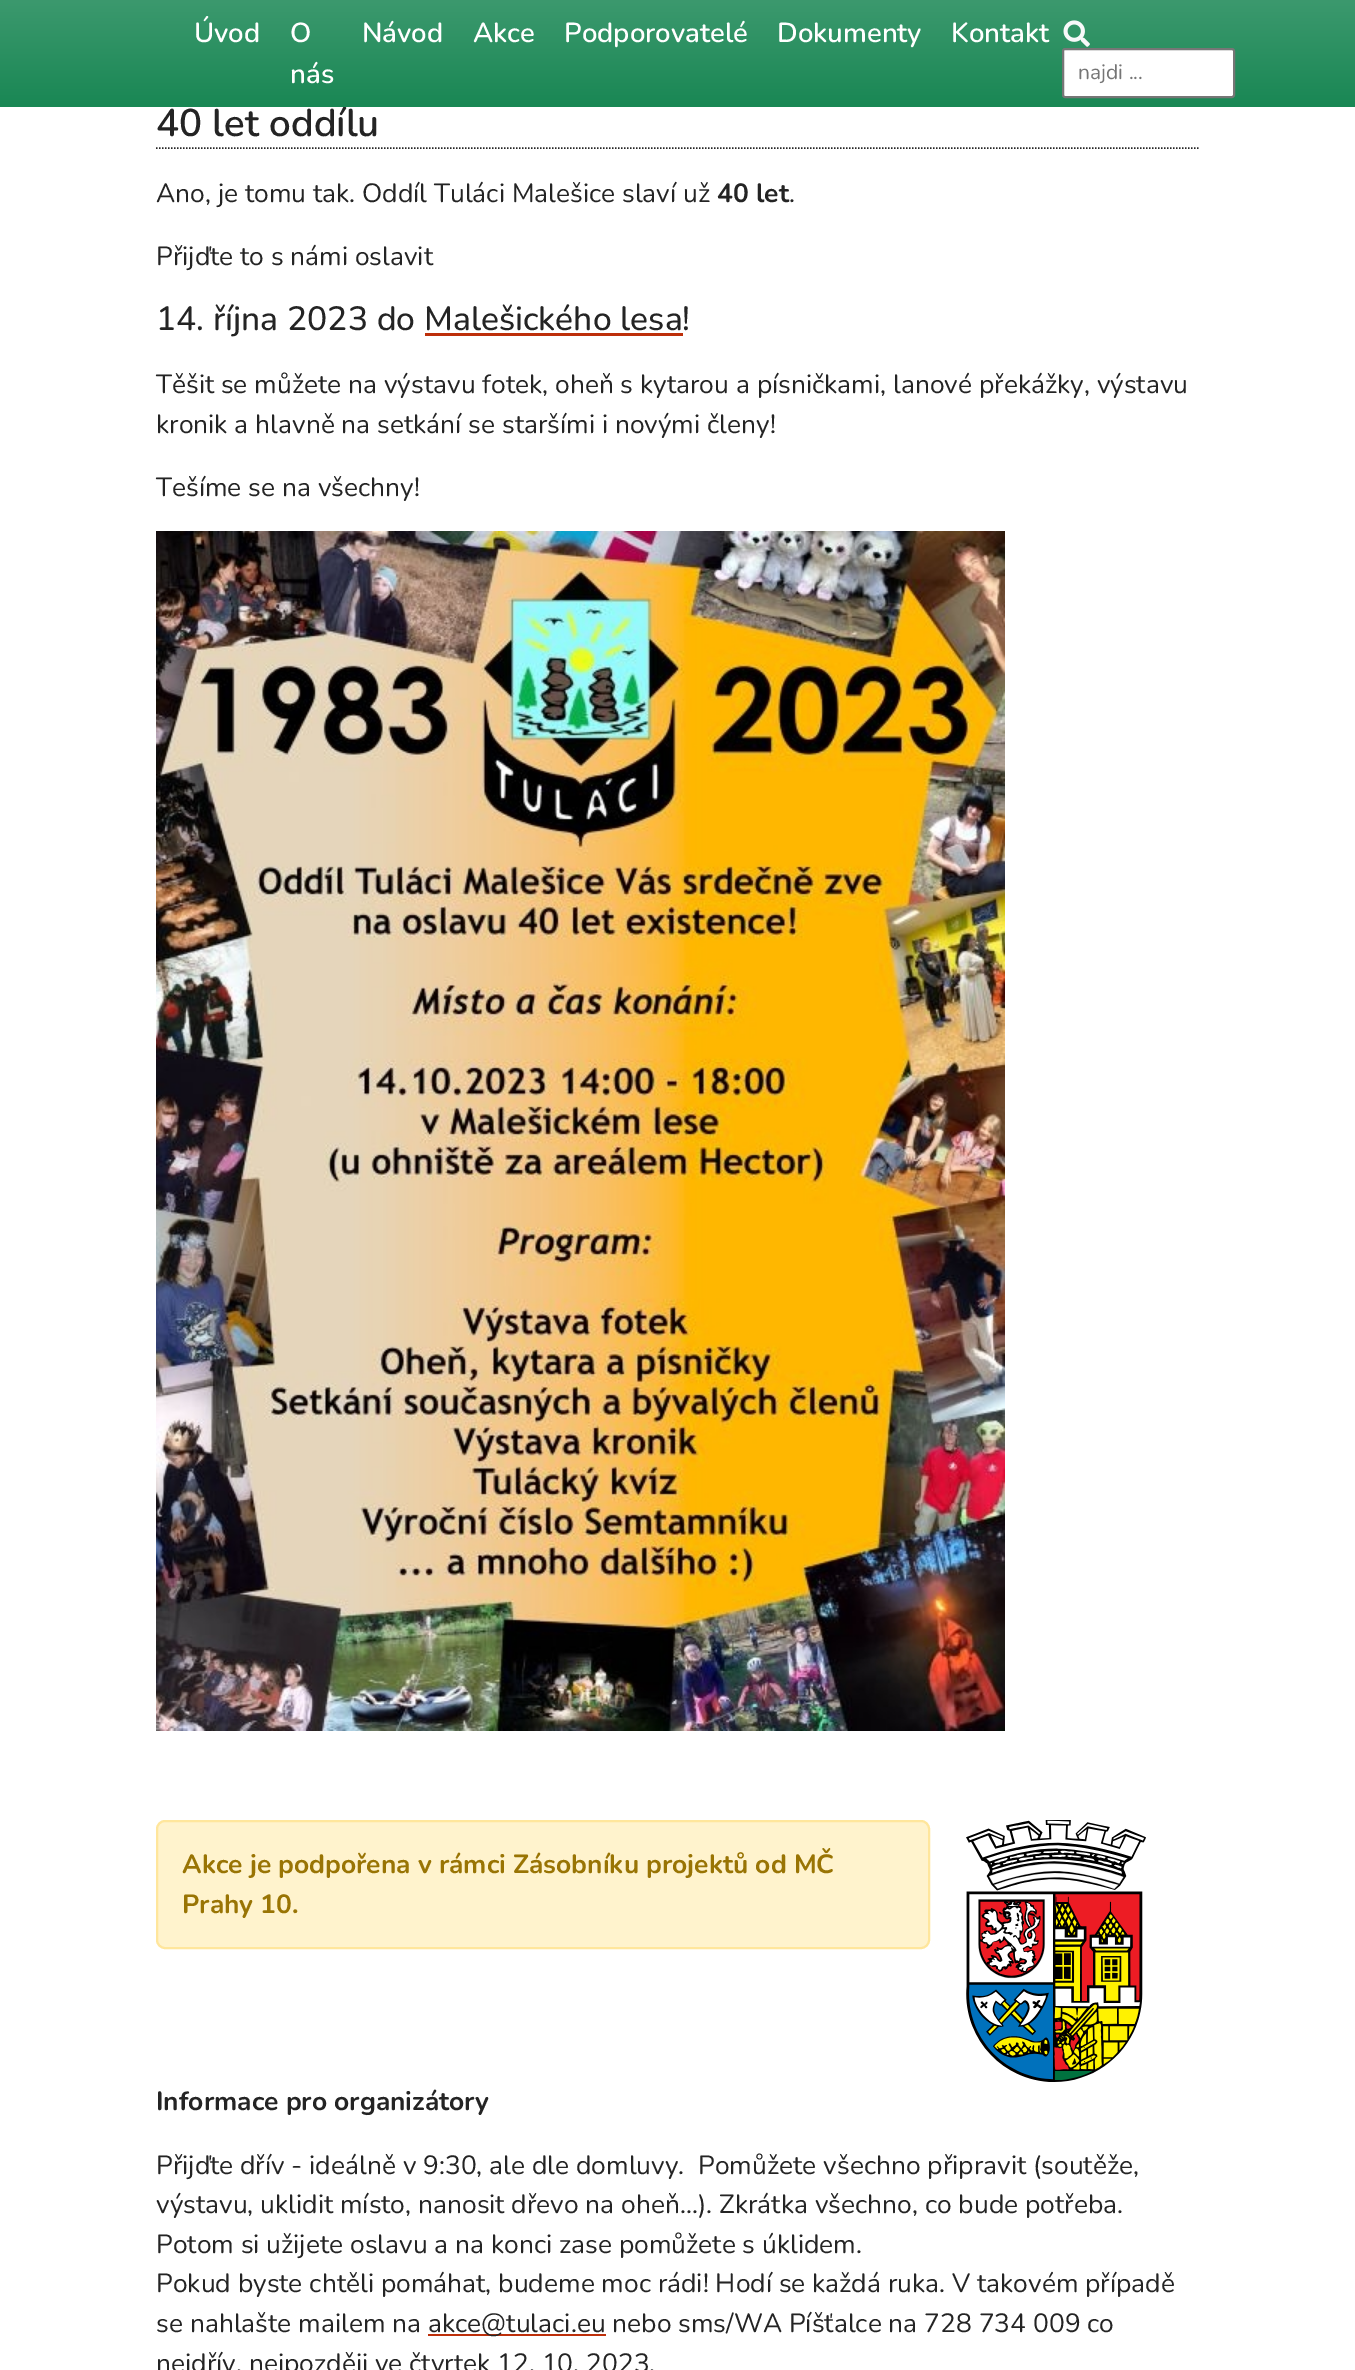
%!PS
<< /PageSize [1355 2370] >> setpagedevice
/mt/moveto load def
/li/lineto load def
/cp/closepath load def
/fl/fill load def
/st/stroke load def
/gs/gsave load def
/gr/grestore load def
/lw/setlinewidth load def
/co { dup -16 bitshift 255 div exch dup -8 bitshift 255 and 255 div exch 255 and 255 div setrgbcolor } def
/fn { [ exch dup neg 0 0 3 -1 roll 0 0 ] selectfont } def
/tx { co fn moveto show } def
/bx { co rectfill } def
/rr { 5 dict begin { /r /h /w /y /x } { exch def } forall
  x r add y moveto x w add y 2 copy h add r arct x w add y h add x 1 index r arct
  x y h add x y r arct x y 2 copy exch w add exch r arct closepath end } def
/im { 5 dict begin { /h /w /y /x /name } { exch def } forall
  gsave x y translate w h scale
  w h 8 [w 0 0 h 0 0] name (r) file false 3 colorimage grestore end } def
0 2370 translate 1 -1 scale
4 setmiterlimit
0 0 1355 2370 16#FFFFFF bx
16#242424 co
1.5 lw
[1.5 1.5] 0 setdash
156 148 mt 1200 148 li st
(media/2.raw) 156 531 849 1200 im
16#FFF3CD co
157 1821 772 127 8 rr gs fl gr
16#FFE69C co
2 lw
[] 0 setdash
st
(media/3.raw) 966 1820 180 262 im
428 2334 178 2 16#BD2F0A bx
(40 let oddílu) 156 136 /Nunito-SemiBold 38.5 16#242424 tx
gs 0 0 mt 1355 0 li 1355 107 li 0 107 li cp clip newpath
<< /ShadingType 2 /ColorSpace /DeviceRGB /Coords [678 0 678 107] /Extend [true true] /Function << /FunctionType 2 /Domain [0 1] /C0 [.235 .6 .431] /C1 [.098 .529 .329] /N 1 >> >> shfill gr
16#FFFFFF co
1063 49 171 48 2 rr gs fl gr
16#767676 co
st
(najdi ...) 1078 79 /Nunito-Regular 21 16#757575 tx
(media/1.raw) 1063 20 27 27 im
(Kontakt) 951 42 /Nunito-SemiBold 27.5 16#FFFFFF tx
(Dokumenty) 777 42 /Nunito-SemiBold 27.5 16#FFFFFF tx
(Podporovatelé) 564 42 /Nunito-SemiBold 27.5 16#FFFFFF tx
(Akce) 473 42 /Nunito-SemiBold 27.5 16#FFFFFF tx
(Návod) 362 42 /Nunito-SemiBold 27.5 16#FFFFFF tx
(nás) 290 83 /Nunito-SemiBold 27.5 16#FFFFFF tx
(O) 290 42 /Nunito-SemiBold 27.5 16#FFFFFF tx
(Úvod) 194 42 /Nunito-SemiBold 27.5 16#FFFFFF tx
(Ano, je tomu tak. Oddíl Tuláci Malešice slaví už) 156 202 /Nunito-Regular 26.4 16#242424 tx
(40 let) 717 202 /Nunito-Bold 26.4 16#242424 tx
(.) 789 202 /Nunito-Regular 26.4 16#242424 tx
(Přijďte to s námi oslavit) 156 265 /Nunito-Regular 26.4 16#242424 tx
(14. října 2023 do Malešického lesa!) 156 330 /Nunito-Medium 33.6 16#242424 tx
425 333 258 3 16#BD2F0A bx
(Těšit se můžete na výstavu fotek, oheň s kytarou a písničkami, lanové překážky, výstavu) 156 393 /Nunito-Regular 26.4 16#242424 tx
(kronik a hlavně na setkání se staršími i novými členy!) 156 433 /Nunito-Regular 26.4 16#242424 tx
(Tešíme se na všechny!) 156 496 /Nunito-Regular 26.4 16#242424 tx
(Akce je podpořena v rámci Zásobníku projektů od MČ) 182 1873 /Nunito-Bold 26.4 16#997404 tx
(Prahy 10.) 182 1913 /Nunito-Bold 26.4 16#997404 tx
(Informace pro organizátory) 156 2110 /Nunito-Bold 26.4 16#242424 tx
(Přijďte dřív - ideálně v 9:30, ale dle domluvy.  Pomůžete všechno připravit \(soutěže,) 156 2174 /Nunito-Regular 26.4 16#242424 tx
(výstavu, uklidit místo, nanosit dřevo na oheň...\). Zkrátka všechno, co bude potřeba.) 156 2213 /Nunito-Regular 26.4 16#242424 tx
(Potom si užijete oslavu a na konci zase pomůžete s úklidem.) 156 2253 /Nunito-Regular 26.4 16#242424 tx
(Pokud byste chtěli pomáhat, budeme moc rádi! Hodí se každá ruka. V takovém případě) 156 2292 /Nunito-Regular 26.4 16#242424 tx
(se nahlašte mailem na) 156 2332 /Nunito-Regular 26.4 16#242424 tx
(akce@tulaci.eu nebo sms/WA Píšťalce na 728 734 009 co) 428 2332 /Nunito-Regular 26.4 16#242424 tx
(nejdřív, nejpozději ve čtvrtek 12. 10. 2023.) 156 2372 /Nunito-Regular 26.4 16#242424 tx
showpage
